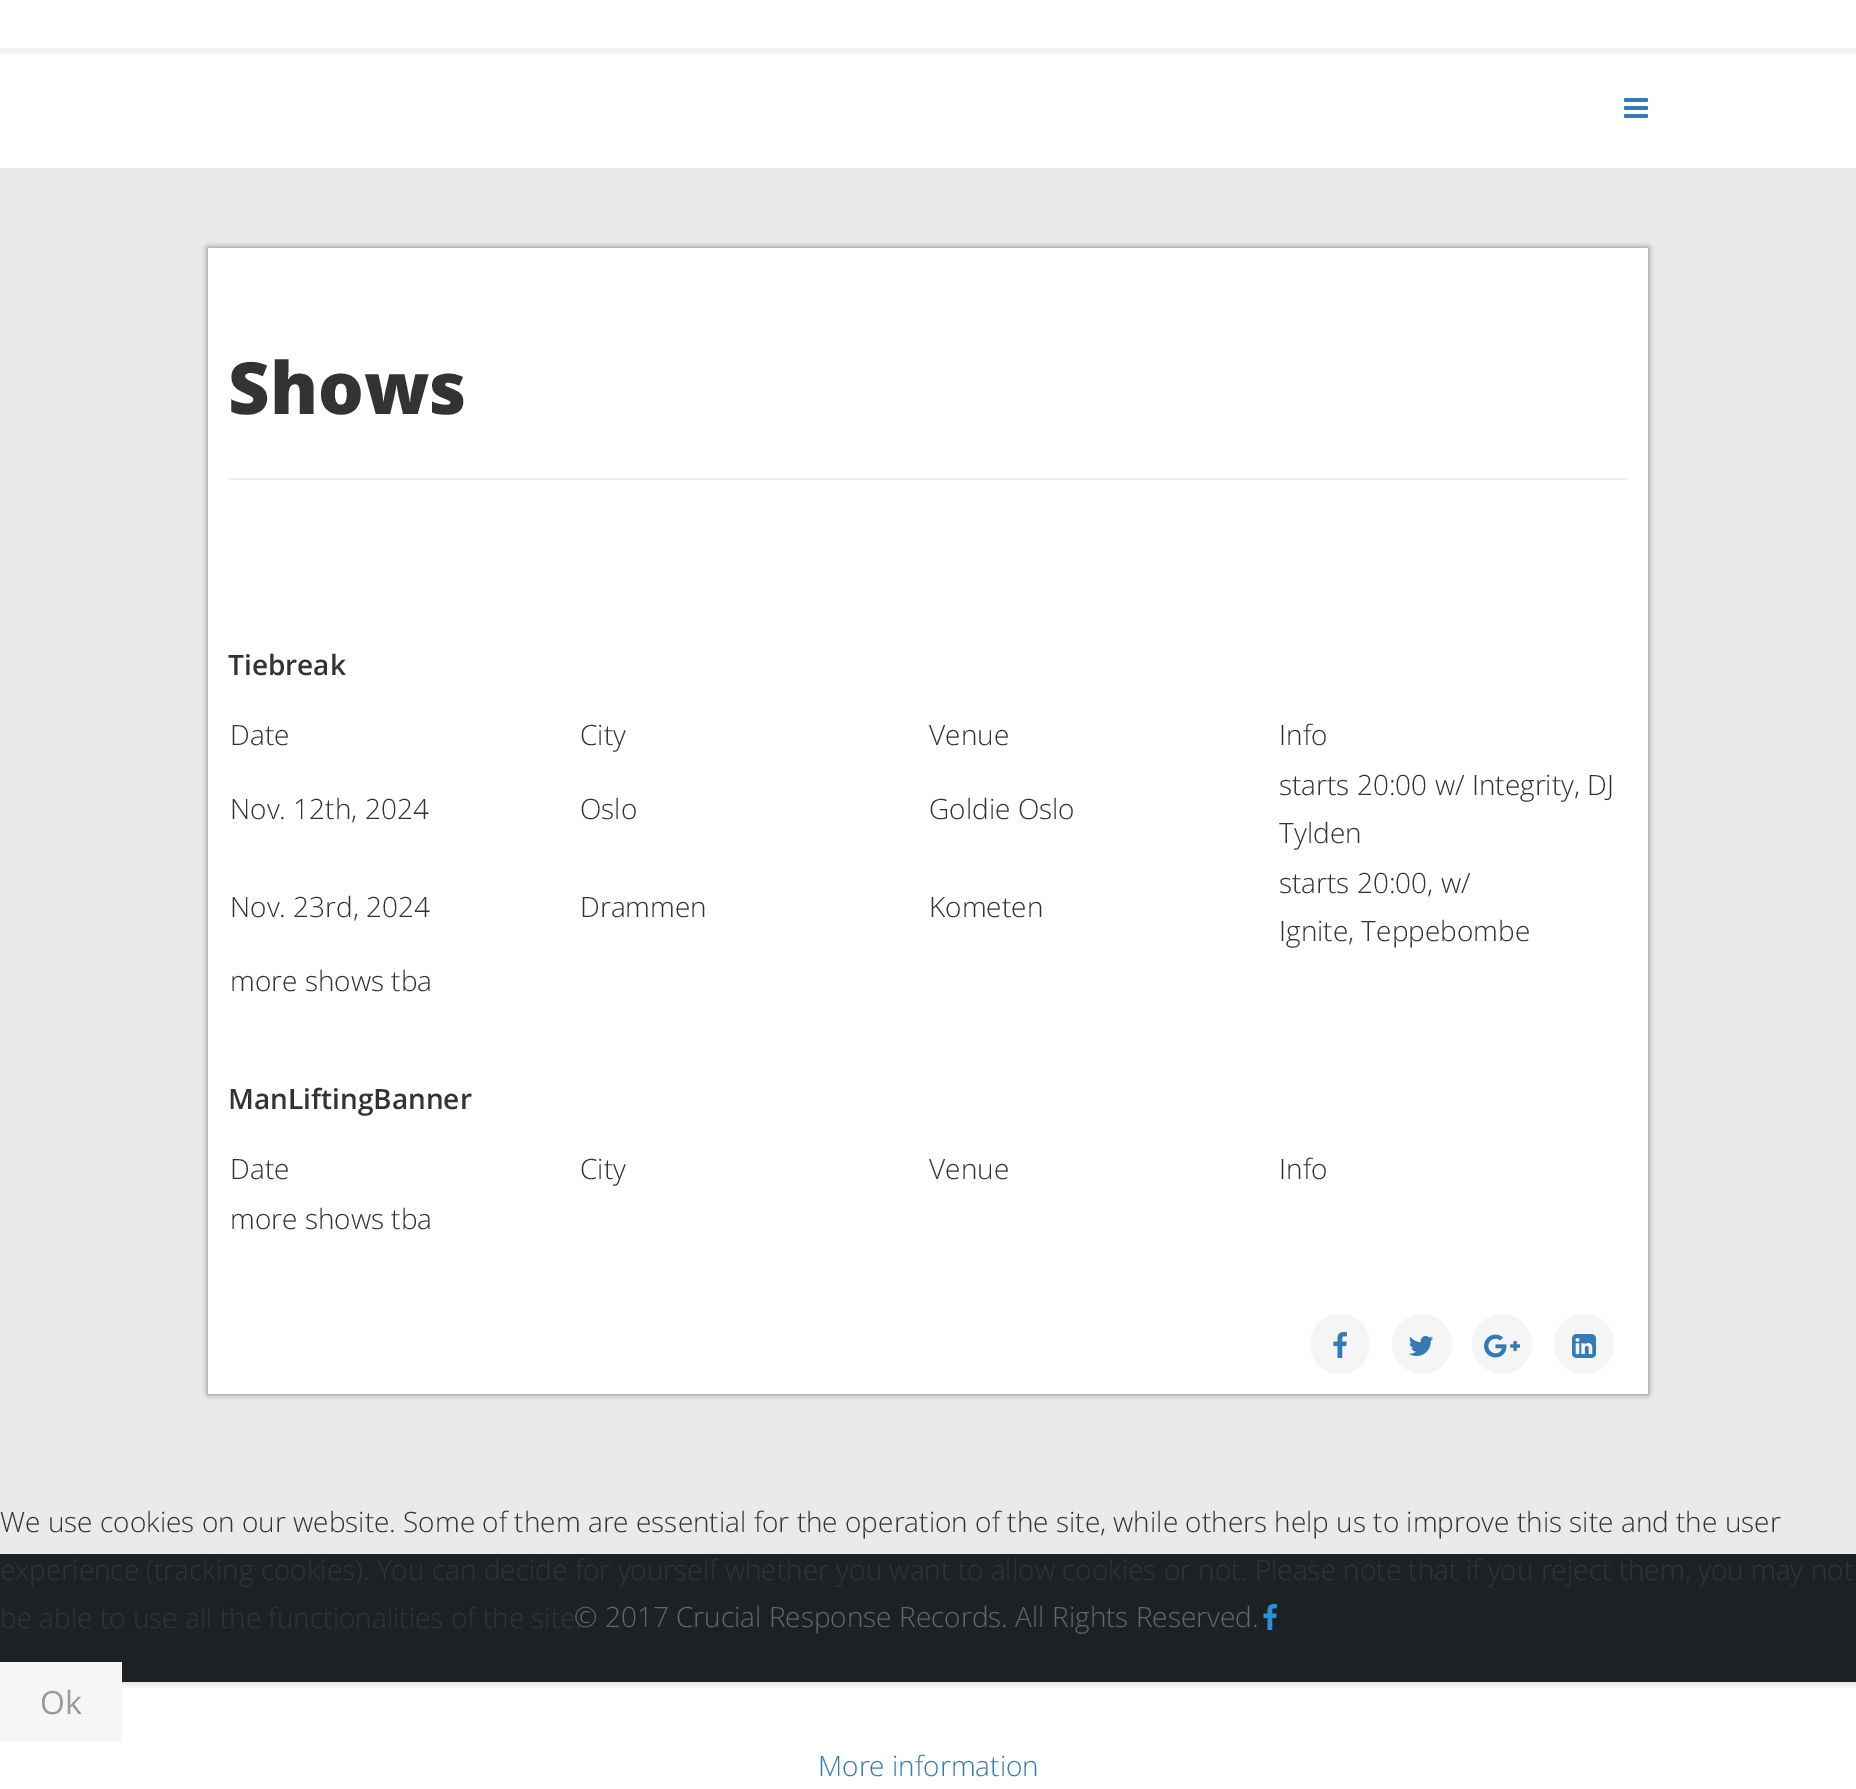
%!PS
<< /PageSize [1856 1789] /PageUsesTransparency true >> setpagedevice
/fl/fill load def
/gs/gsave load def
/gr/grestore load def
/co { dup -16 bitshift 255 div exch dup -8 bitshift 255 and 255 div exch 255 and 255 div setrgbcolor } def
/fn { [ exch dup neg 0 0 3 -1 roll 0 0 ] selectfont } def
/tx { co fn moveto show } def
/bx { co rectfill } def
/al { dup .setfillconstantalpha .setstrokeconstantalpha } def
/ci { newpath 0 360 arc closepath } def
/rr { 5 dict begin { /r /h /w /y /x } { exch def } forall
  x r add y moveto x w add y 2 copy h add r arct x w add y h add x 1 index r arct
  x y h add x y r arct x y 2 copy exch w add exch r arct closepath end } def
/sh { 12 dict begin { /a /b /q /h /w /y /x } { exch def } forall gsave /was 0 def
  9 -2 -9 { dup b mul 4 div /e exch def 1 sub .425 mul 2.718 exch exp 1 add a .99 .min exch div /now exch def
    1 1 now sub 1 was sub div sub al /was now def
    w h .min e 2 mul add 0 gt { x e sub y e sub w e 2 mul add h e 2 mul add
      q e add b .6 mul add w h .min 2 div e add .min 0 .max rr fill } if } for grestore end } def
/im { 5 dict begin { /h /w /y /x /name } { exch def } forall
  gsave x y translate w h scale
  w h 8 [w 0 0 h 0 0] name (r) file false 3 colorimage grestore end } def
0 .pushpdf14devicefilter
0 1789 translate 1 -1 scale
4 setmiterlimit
0 0 1856 1789 16#FFFFFF bx
gs
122 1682 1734 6 rectclip
16#000000 co
0 0 1856 1682 0 5 .2 sh
gr
gs
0 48 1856 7 rectclip
16#000000 co
0 6 1856 48 0 3 .05 sh
gr
(media/1.raw) 1624 98 24 20 im
0 168 1856 1386 16#EBEAE8 bx
16#000000 co
208 248 1440 1146 0 3 .5 sh
208 248 1440 1146 16#FFFFFF bx
228 478 1400 2 16#EEEEEE bx
16#F5F5F5 co
1340 1344 30 ci fl
(media/2.raw) 1333 1332 14 26 im
1422 1344 30 ci fl
(media/3.raw) 1408 1336 26 20 im
1502 1344 30 ci fl
(media/4.raw) 1484 1334 36 24 im
1584 1344 30 ci fl
(media/5.raw) 1572 1334 24 24 im
0 1554 1856 128 16#1E2124 bx
(media/6.raw) 1263 1604 14 26 im
0 1662 122 80 16#F7F6F5 bx
(Shows) 228 414 /OpenSans-ExtraBold 72 16#333333 tx
(Tiebreak) 228 675 /OpenSans-SemiBold 28 16#333333 tx
(Date) 230 745 /OpenSans-Light 28 16#333333 tx
(City) 580 745 /OpenSans-Light 28 16#333333 tx
(Venue) 929 745 /OpenSans-Light 28 16#333333 tx
(Info) 1279 745 /OpenSans-Light 28 16#333333 tx
(Nov. 12th, 2024) 230 819 /OpenSans-Light 28 16#333333 tx
(Oslo) 580 819 /OpenSans-Light 28 16#333333 tx
(Goldie Oslo) 929 819 /OpenSans-Light 28 16#333333 tx
(starts 20:00 w/ Integrity, DJ) 1279 795 /OpenSans-Light 28 16#333333 tx
(Tylden) 1279 843 /OpenSans-Light 28 16#333333 tx
(Nov. 23rd, 2024) 230 917 /OpenSans-Light 28 16#333333 tx
(Drammen) 580 917 /OpenSans-Light 28 16#333333 tx
(Kometen) 929 917 /OpenSans-Light 28 16#333333 tx
(starts 20:00, w/) 1279 893 /OpenSans-Light 28 16#333333 tx
(Ignite, Teppebombe) 1279 941 /OpenSans-Light 28 16#333333 tx
(more shows tba) 230 991 /OpenSans-Light 28 16#333333 tx
(ManLiftingBanner) 228 1109 /OpenSans-SemiBold 28 16#333333 tx
(Date) 230 1179 /OpenSans-Light 28 16#333333 tx
(City) 580 1179 /OpenSans-Light 28 16#333333 tx
(Venue) 929 1179 /OpenSans-Light 28 16#333333 tx
(Info) 1279 1179 /OpenSans-Light 28 16#333333 tx
(more shows tba) 230 1229 /OpenSans-Light 28 16#333333 tx
(© 2017 Crucial Response Records. All Rights Reserved.) 574 1627 /OpenSans-Light 28 16#666666 tx
(We use cookies on our website. Some of them are essential for the operation of the site, while others help us to improve this site and the user) 0 1532 /OpenSans-Light 28 16#333333 tx
(experience \(tracking cookies\). You can decide for yourself whether you want to allow cookies or not. Please note that if you reject them, you may not) 0 1580 /OpenSans-Light 28 16#333333 tx
(be able to use all the functionalities of the site.) 0 1628 /OpenSans-Light 28 16#333333 tx
(Ok) 40 1714 /OpenSans-Regular 32 16#999999 tx
(More information) 818 1776 /OpenSans-Light 28 16#337AB7 tx
.poppdf14devicefilter showpage
